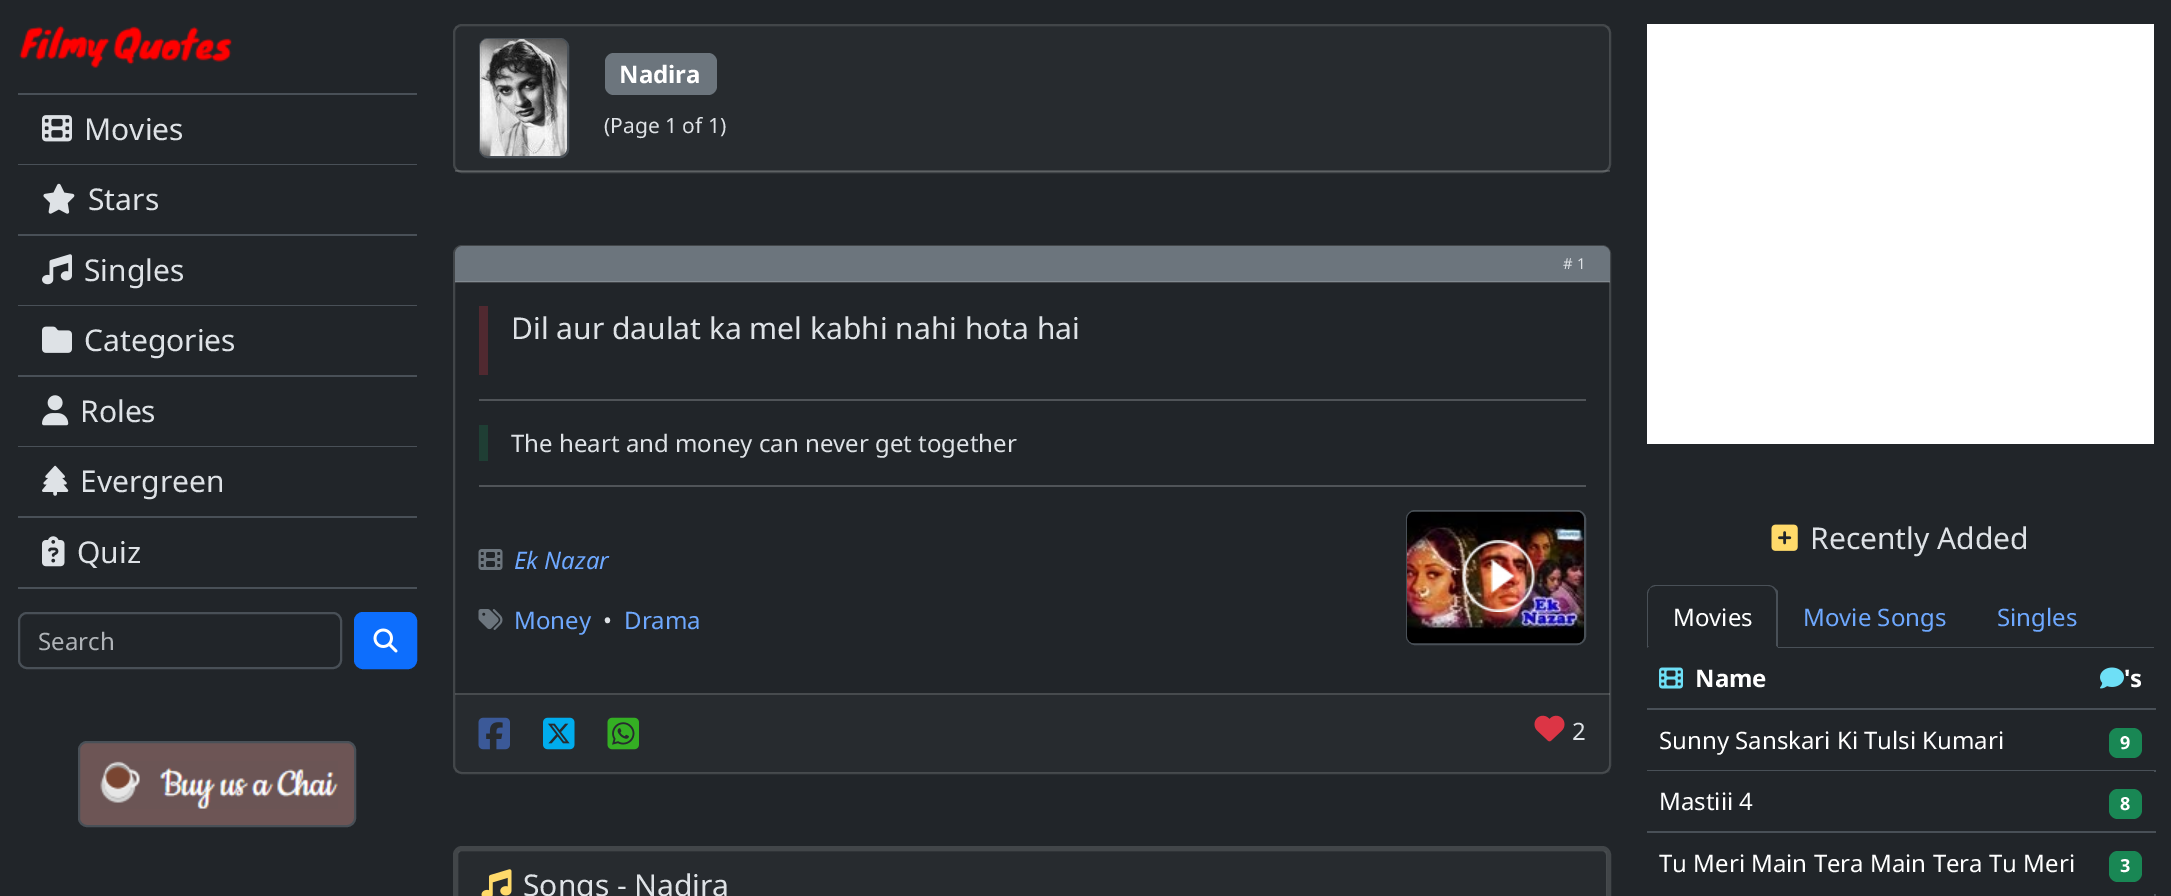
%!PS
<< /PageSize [2171 896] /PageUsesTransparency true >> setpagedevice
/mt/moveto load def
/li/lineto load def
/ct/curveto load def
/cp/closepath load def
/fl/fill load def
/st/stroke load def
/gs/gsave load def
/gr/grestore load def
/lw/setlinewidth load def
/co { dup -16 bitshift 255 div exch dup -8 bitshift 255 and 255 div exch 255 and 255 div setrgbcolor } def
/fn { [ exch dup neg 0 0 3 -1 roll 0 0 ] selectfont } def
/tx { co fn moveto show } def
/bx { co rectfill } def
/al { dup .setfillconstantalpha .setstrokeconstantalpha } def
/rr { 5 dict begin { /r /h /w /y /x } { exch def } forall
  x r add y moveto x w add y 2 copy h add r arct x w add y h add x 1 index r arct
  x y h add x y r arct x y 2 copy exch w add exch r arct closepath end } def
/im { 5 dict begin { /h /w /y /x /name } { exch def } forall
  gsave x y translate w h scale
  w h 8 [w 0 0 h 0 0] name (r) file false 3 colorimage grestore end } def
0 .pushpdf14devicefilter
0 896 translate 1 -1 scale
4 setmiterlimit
0 0 2171 896 16#212529 bx
(media/1.raw) 19 25 213 43 im
18 93 399 2 16#495057 bx
18 164 399 1 16#495057 bx
(media/2.raw) 42 115 30 27 im
18 234 399 2 16#495057 bx
(media/3.raw) 43 183 32 31 im
18 305 399 1 16#495057 bx
(media/4.raw) 42 254 30 31 im
18 375 399 2 16#495057 bx
(media/5.raw) 42 326 30 27 im
18 446 399 1 16#495057 bx
(media/6.raw) 42 395 27 31 im
18 516 399 2 16#495057 bx
(media/7.raw) 42 465 27 31 im
18 587 399 2 16#495057 bx
(media/8.raw) 42 536 23 31 im
2 lw
19 613 322 55 8 rr st
16#0D6EFD co
355 613 61 55 8 rr gs fl gr
st
(media/9.raw) 373 628 25 25 im
16#6D5555 co
79 742 276 84 8 rr gs fl gr
16#495057 co
st
(media/10.raw) 100 761 238 48 im
16#424649 co
454 25 1156 147 8 rr st
0.03 al
455 26 1155 145 16#DEE2E6 bx
0.15 al
455 170 1155 2 16#FFFFFF bx
1 al
16#495057 co
480 39 88 118 8 rr st
(media/11.raw) 480 39 87 117 im
16#6C757D co
605 53 112 42 9 rr fl
16#424649 co
454 246 1156 527 8 rr st
16#6C757D co
463 246 mt 1602 246 li 1606.5 246 1610 249.5 1610 254 ct 1610 282 li 455 282 li 455 254 li 455 249.5 458.5 246 463 246 ct cp fl
0.15 al
455 281 1155 2 16#FFFFFF bx
1 al
479 306 9 69 16#502930 bx
479 399 1107 2 16#505458 bx
479 425 9 36 16#1F3E34 bx
479 485 1107 2 16#505458 bx
(media/12.raw) 478 549 25 21 im
(media/13.raw) 478 609 25 21 im
16#495057 co
1407 511 178 133 8 rr st
(media/14.raw) 1407 511 177 133 im
(media/15.raw) 1462 540 73 72 im
0.03 al
455 693 1155 80 16#DEE2E6 bx
0.15 al
455 693 1155 2 16#FFFFFF bx
1 al
(media/16.raw) 478 717 32 33 im
(media/17.raw) 543 717 32 33 im
(media/18.raw) 607 717 32 33 im
(media/19.raw) 1534 715 31 27 im
16#424649 co
5 lw
455.5 848.5 1153 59 6.5 rr st
0.03 al
458 851 1149 45 16#DEE2E6 bx
1 al
(media/20.raw) 481 869 31 27 im
1647 24 507 420 16#FFFFFF bx
(media/21.raw) 1771 524 27 27 im
1778 647 376 1 16#495057 bx
1656 585 mt 1654 585 1651 586 1650 588 ct 1652 587 1654 586 1656 586 ct 1768 586 li 1771 586 1773 587 1774 589 ct 1775 588 li 1773 586 1770 585 1768 585 ct cp fl
1778 591 mt 1778 648 li 1776 646 li 1776 594 li 1776 592 1775 590 1774 589 ct 1775 588 li cp fl
16#212529 co
1778 648 mt 1776 646 li 1649 646 li 1647 648 li cp fl
16#495057 co
1647 648 mt 1649 646 li 1648 646 li 1648 594 li 1648 592 1649 590 1650 588 ct 1648 589 1647 592 1647 594 ct cp fl
(media/22.raw) 1659 667 24 22 im
1647 708 509 2 16#495057 bx
(media/23.raw) 2100 667 24 22 im
2087 770 69 2 16#495057 bx
1647 770 441 1 16#495057 bx
16#198754 co
2109 728 33 30 9 rr fl
2087 771 67 1 16#212529 bx
1647 831 509 2 16#495057 bx
16#198754 co
2109 789 33 30 9 rr fl
2154 894 2 2 16#495057 bx
16#198754 co
2109 851 33 31 9 rr fl
(Movies) 84 140 /NotoSans-Regular 30 16#DEE2E6 tx
(Stars) 88 210 /NotoSans-Regular 30 16#DEE2E6 tx
(Singles) 84 281 /NotoSans-Regular 30 16#DEE2E6 tx
(Categories) 84 351 /NotoSans-Regular 30 16#DEE2E6 tx
(Roles) 80 422 /NotoSans-Regular 30 16#DEE2E6 tx
(Evergreen) 80 492 /NotoSans-Regular 30 16#DEE2E6 tx
(Quiz) 77 563 /NotoSans-Regular 30 16#DEE2E6 tx
(Search) 38 650 /NotoSans-Regular 24 16#AFB3B7 tx
(Nadira) 619 83 /NotoSans-Bold 24 16#FFFFFF tx
(\(Page 1 of 1\)) 604 133 /NotoSans-Regular 21 16#DEE2E6 tx
(# 1) 1563 269 /NotoSans-Regular 15 16#DEE2E6 tx
(Dil aur daulat ka mel kabhi nahi hota hai) 511 339 /NotoSans-Regular 30 16#DEE2E6 tx
(The heart and money can never get together) 511 452 /NotoSans-Regular 24 16#DEE2E6 tx
(Ek Nazar) 514 569 /NotoSans-Italic 24 16#6EA8FE tx
(Money) 514 629 /NotoSans-Regular 24 16#6EA8FE tx
(•) 603 629 /NotoSans-Regular 24 16#DEE2E6 tx
(Drama) 624 629 /NotoSans-Regular 24 16#6EA8FE tx
(2) 1572 740 /NotoSans-Regular 24 16#DEE2E6 tx
(Songs - Nadira) 523 896 /NotoSans-Regular 30 16#DEE2E6 tx
(Recently Added) 1810 549 /NotoSans-Regular 30 16#DEE2E6 tx
(Movies) 1673 626 /NotoSans-Regular 24 16#FFFFFF tx
(Movie Songs) 1803 626 /NotoSans-Regular 24 16#6EA8FE tx
(Singles) 1997 626 /NotoSans-Regular 24 16#6EA8FE tx
(Name) 1695 687 /NotoSans-Bold 24 16#FFFFFF tx
('s) 2124 687 /NotoSans-Bold 24 16#FFFFFF tx
(Sunny Sanskari Ki Tulsi Kumari) 1659 749 /NotoSans-Regular 24 16#FFFFFF tx
(9) 2120 749 /NotoSans-Bold 18 16#FFFFFF tx
(Mastiii 4) 1659 810 /NotoSans-Regular 24 16#FFFFFF tx
(8) 2120 810 /NotoSans-Bold 18 16#FFFFFF tx
(Tu Meri Main Tera Main Tera Tu Meri) 1659 872 /NotoSans-Regular 24 16#FFFFFF tx
(3) 2120 872 /NotoSans-Bold 18 16#FFFFFF tx
.poppdf14devicefilter showpage
